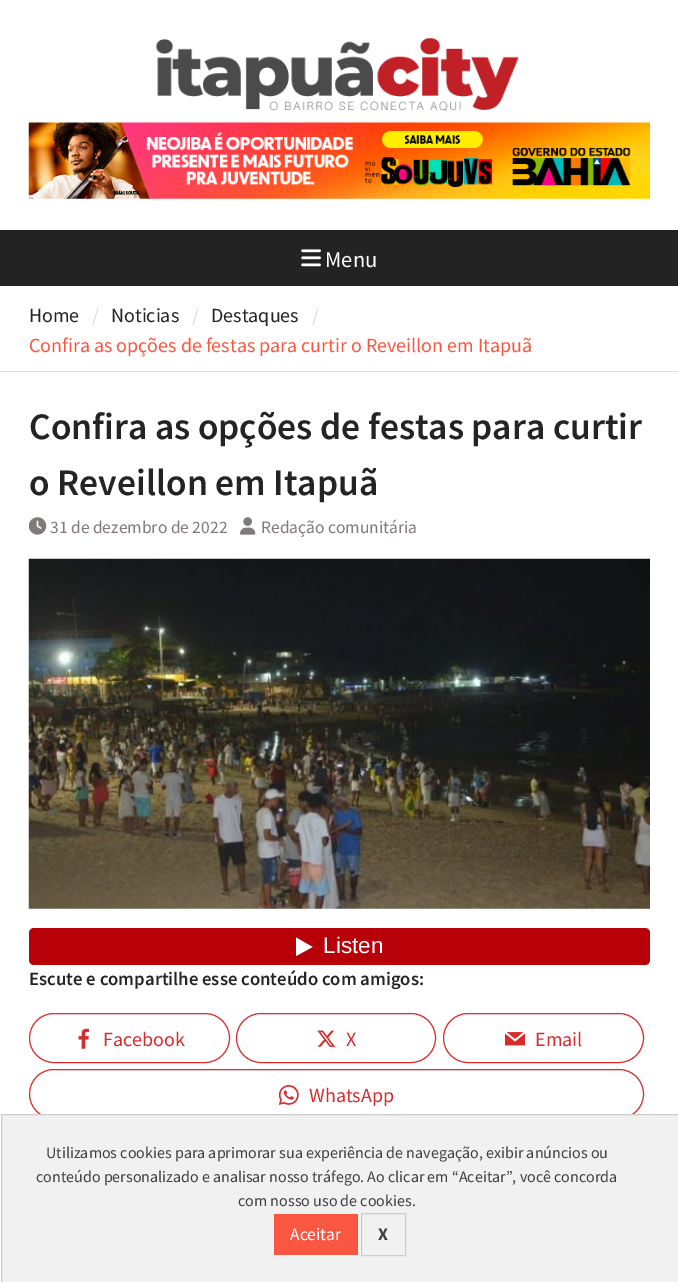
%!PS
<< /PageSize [678 1282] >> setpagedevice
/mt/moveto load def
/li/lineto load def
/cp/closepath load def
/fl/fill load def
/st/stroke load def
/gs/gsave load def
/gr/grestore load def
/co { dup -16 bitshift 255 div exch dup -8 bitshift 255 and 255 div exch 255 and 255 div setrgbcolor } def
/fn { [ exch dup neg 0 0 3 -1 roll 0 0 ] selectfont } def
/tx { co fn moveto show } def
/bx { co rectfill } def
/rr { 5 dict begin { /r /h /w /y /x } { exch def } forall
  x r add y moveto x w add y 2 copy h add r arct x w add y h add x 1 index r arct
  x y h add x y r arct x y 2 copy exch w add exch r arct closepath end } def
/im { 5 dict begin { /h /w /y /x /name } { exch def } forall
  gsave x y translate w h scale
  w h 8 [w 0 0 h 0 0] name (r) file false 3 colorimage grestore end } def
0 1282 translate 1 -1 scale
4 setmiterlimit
0 0 678 1282 16#FFFFFF bx
(media/1.raw) 155 37 364 74 im
(media/2.raw) 28 122 622 77 im
0 230 678 56 16#232323 bx
(media/3.raw) 301 249 20 18 im
0 371 678 1 16#DDDDDD bx
(media/4.raw) 29 517 18 18 im
(media/5.raw) 240 517 16 18 im
(media/6.raw) 28 558 622 351 im
16#B80009 co
29 928 621 37 5 rr fl
16#FFFFFF co
296 937.5 mt 296 956 li 312.5 947 li cp fl
16#D62C2C co
29.5 1013.5 200 49 24.5 rr st
(media/7.raw) 78 1028 11 21 im
236.5 1013.5 199 49 24.5 rr st
(media/8.raw) 317 1030 19 17 im
443.5 1013.5 200 49 24.5 rr st
(media/9.raw) 505 1032 20 14 im
29.5 1069.5 614 49 24.5 rr st
(media/10.raw) 278 1085 21 20 im
16#F1F1F1 co
1.5 1114.5 mt 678.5 1114.5 li 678.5 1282.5 li 1.5 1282.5 li cp gs fl gr
16#CCCCCC co
st
274 1214 84 41 16#FA5742 bx
16#CCCCCC co
361.5 1213.5 44 42 rectstroke
(Menu) 325 267 /SourceSansPro-Regular 22.5 16#FFFFFF tx
(Home) 29 322 /SourceSansPro-Regular 20 16#242424 tx
(/) 92 322 /SourceSansPro-Regular 20 16#DDDDDD tx
(Noticias) 111 322 /SourceSansPro-Regular 20 16#242424 tx
(/) 192 322 /SourceSansPro-Regular 20 16#DDDDDD tx
(Destaques) 211 322 /SourceSansPro-Regular 20 16#242424 tx
(/) 312 322 /SourceSansPro-Regular 20 16#DDDDDD tx
(Confira as opções de festas para curtir o Reveillon em Itapuã) 29 352 /SourceSansPro-Regular 20 16#FA5742 tx
(Confira as opções de festas para curtir) 29 439 /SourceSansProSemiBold-SemiBold 37.5 16#242424 tx
(o Reveillon em Itapuã) 29 495 /SourceSansProSemiBold-SemiBold 37.5 16#242424 tx
(31 de dezembro de 2022) 50 533 /SourceSansPro-Regular 17.5 16#807A7A tx
(Redação comunitária) 261 533 /SourceSansPro-Regular 17.5 16#807A7A tx
(Listen) 323 953 /LiberationSans-Regular 22.5 16#FFFFFF tx
(Escute e compartilhe esse conteúdo com amigos:) 29 985 /SourceSansProSemiBold-SemiBold 18.75 16#242424 tx
(Facebook) 103 1046 /SourceSansPro-Regular 20 16#D62C2C tx
(X) 346 1046 /SourceSansPro-Regular 20 16#D62C2C tx
(Email) 535 1046 /SourceSansPro-Regular 20 16#D62C2C tx
(WhatsApp) 309 1102 /SourceSansPro-Regular 20 16#D62C2C tx
(Utilizamos cookies para aprimorar sua experiência de navegação, exibir anúncios ou) 46 1158 /SourceSansPro-Regular 16 16#404040 tx
(conteúdo personalizado e analisar nosso tráfego. Ao clicar em “Aceitar”, você concorda) 36 1182 /SourceSansPro-Regular 16 16#404040 tx
(com nosso uso de cookies.) 238 1206 /SourceSansPro-Regular 16 16#404040 tx
(Aceitar) 290 1240 /SourceSansPro-Regular 17.5 16#FFFFFF tx
(X) 378 1240 /SourceSansPro-Bold 17.5 16#404040 tx
showpage
